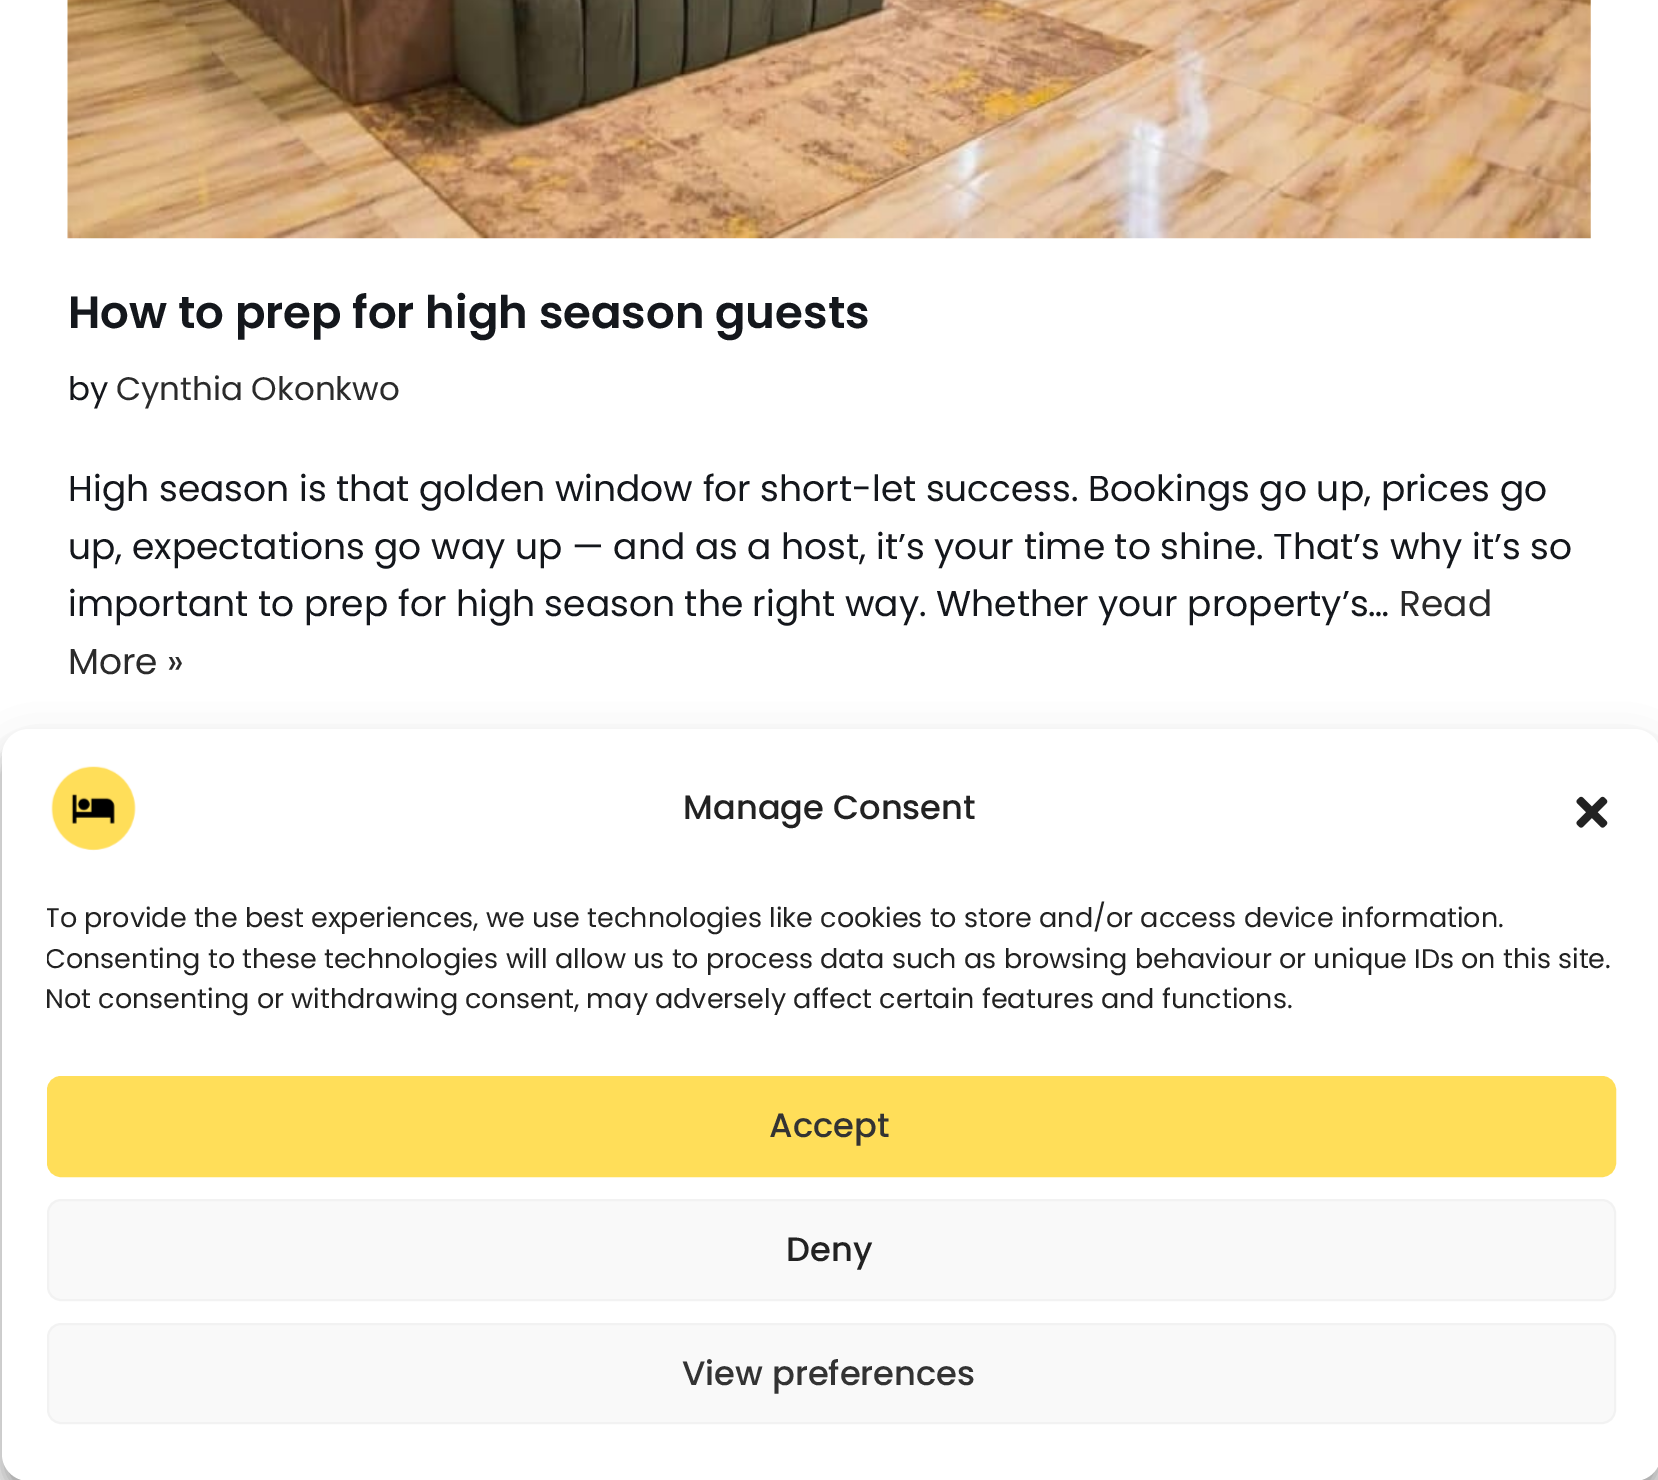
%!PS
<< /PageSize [1658 1480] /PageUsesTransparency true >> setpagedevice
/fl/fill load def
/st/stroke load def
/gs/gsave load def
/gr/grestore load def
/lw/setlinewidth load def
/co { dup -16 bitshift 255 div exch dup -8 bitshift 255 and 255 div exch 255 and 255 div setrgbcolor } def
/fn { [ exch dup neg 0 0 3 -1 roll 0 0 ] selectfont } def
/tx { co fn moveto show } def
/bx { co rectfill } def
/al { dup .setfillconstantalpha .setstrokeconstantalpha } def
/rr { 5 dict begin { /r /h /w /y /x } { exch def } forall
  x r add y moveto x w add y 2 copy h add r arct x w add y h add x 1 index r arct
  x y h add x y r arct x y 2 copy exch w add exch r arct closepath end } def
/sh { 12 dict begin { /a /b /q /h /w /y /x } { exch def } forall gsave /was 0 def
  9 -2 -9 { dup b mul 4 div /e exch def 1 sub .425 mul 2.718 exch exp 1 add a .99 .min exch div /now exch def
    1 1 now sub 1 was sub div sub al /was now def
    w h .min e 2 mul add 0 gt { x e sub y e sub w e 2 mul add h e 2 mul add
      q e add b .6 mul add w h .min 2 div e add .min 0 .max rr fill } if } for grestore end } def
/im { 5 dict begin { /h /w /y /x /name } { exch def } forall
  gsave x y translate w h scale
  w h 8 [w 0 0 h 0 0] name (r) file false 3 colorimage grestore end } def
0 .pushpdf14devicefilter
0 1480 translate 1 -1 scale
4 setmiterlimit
0 0 1658 1480 16#FFFFFF bx
(media/1.raw) 67 0 1524 239 im
16#000000 co
2 743 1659 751 27 7 .23 sh
2 752 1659 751 27 22.5 .19 sh
16#FFFFFF co
2 729 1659 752 27 rr fl
(media/2.raw) 51 766 85 85 im
(media/3.raw) 1576 796 32 32 im
16#FFDE59 co
48 1077 1567 99 13 rr gs fl gr
2 lw
st
16#F9F9F9 co
48 1200 1567 100 13 rr gs fl gr
16#F2F2F2 co
st
16#F9F9F9 co
48 1324 1567 99 13 rr gs fl gr
16#F2F2F2 co
st
(How to prep for high season guests) 68 328 /Poppins-SemiBold 45 16#14171C tx
(by) 68 400 /Poppins-Regular 32.5 16#14171C tx
(Cynthia Okonkwo) 116 400 /Poppins-Regular 32.5 16#2B2B2B tx
(High season is that golden window for short-let success. Bookings go up, prices go) 68 501 /Poppins-Regular 36 16#14171C tx
(up, expectations go way up — and as a host, it’s your time to shine. That’s why it’s so) 68 559 /Poppins-Regular 36 16#14171C tx
(important to prep for high season the right way. Whether your property’s…) 68 616 /Poppins-Regular 36 16#14171C tx
(Read) 1399 616 /Poppins-Regular 36 16#2B2B2B tx
(More ») 68 674 /Poppins-Regular 36 16#2B2B2B tx
(Manage Consent) 683 819 /Poppins-Medium 33.75 16#222222 tx
gs
47 898 1569 133 rectclip
(To provide the best experiences, we use technologies like cookies to store and/or access device information.) 45 927 /Poppins-Regular 27 16#222222 tx
(Consenting to these technologies will allow us to process data such as browsing behaviour or unique IDs on this site.) 45 968 /Poppins-Regular 27 16#222222 tx
gr
(Not consenting or withdrawing consent, may adversely affect certain features and functions.) 45 1008 /Poppins-Regular 27 16#222222 tx
(Accept) 769 1137 /Poppins-Medium 33.75 16#333333 tx
(Deny) 786 1261 /Poppins-Medium 33.75 16#222222 tx
(View preferences) 682 1385 /Poppins-Medium 33.75 16#333333 tx
.poppdf14devicefilter showpage
